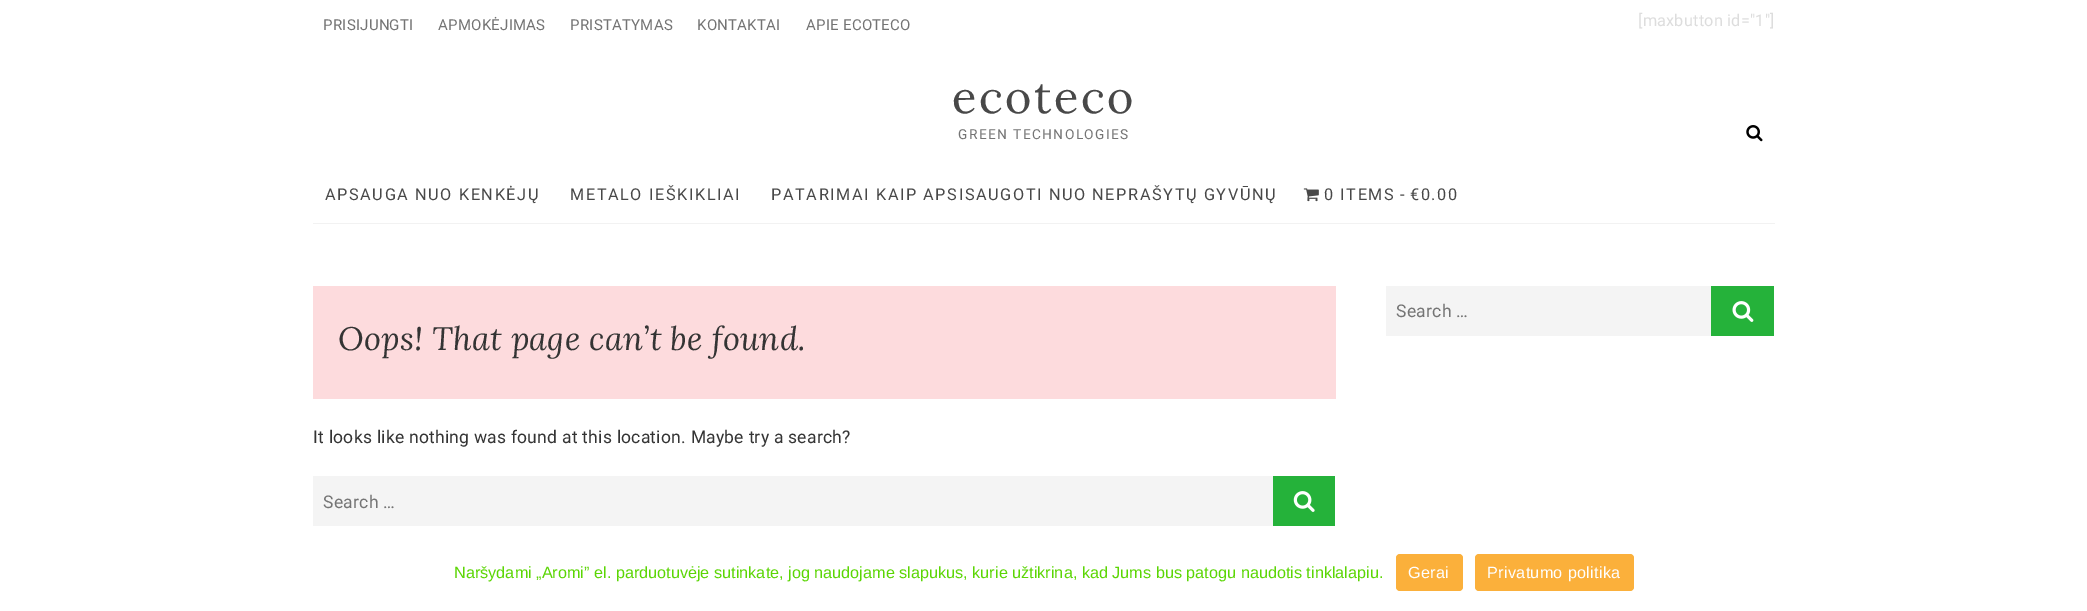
%!PS
<< /PageSize [2087 611] >> setpagedevice
/mt/moveto load def
/fl/fill load def
/co { dup -16 bitshift 255 div exch dup -8 bitshift 255 and 255 div exch 255 and 255 div setrgbcolor } def
/fn { [ exch dup neg 0 0 3 -1 roll 0 0 ] selectfont } def
/tx { co fn moveto show } def
/bx { co rectfill } def
/rr { 5 dict begin { /r /h /w /y /x } { exch def } forall
  x r add y moveto x w add y 2 copy h add r arct x w add y h add x 1 index r arct
  x y h add x y r arct x y 2 copy exch w add exch r arct closepath end } def
/im { 5 dict begin { /h /w /y /x /name } { exch def } forall
  gsave x y translate w h scale
  w h 8 [w 0 0 h 0 0] name (r) file false 3 colorimage grestore end } def
0 611 translate 1 -1 scale
4 setmiterlimit
0 0 2087 611 16#FFFFFF bx
(media/1.raw) 1746 125 17 17 im
313 223 1462 1 16#F2F2F2 bx
(media/2.raw) 1303 188 16 14 im
1386 286 325 50 16#F4F4F4 bx
1711 286 63 50 16#25B23A bx
(media/3.raw) 1732 301 22 21 im
313 286 1023 113 16#FDDBDD bx
313 476 960 50 16#F4F4F4 bx
1273 476 62 50 16#25B23A bx
(media/4.raw) 1293 491 22 21 im
16#FBB03B co
1396 554 67 37 4 rr fl
1475 554 159 37 4 rr fl
/Roboto-Regular 15 fn
16#747474 co
323 30 mt .25 0 (PRISIJUNGTI) ashow
438 30 mt .25 0 (APMOKĖJIMAS) ashow
570 30 mt .25 0 (PRISTATYMAS) ashow
697 30 mt .25 0 (KONTAKTAI) ashow
806 30 mt .25 0 (APIE ECOTECO) ashow
/Roboto-Regular 16.25 fn
16#DDDDDD co
1638 26 mt .25 0 ([maxbutton id="1"]) ashow
/Lora-Regular 45 fn
16#484848 co
952 113 mt 2.5 0 (ecoteco) ashow
/Roboto-Regular 13.75 fn
16#747474 co
958 139 mt 1.4 0 (GREEN TECHNOLOGIES) ashow
/Roboto-Regular 16.25 fn
16#484848 co
325 200 mt 1.6 0 (APSAUGA NUO KENKĖJŲ) ashow
570 200 mt 1.6 0 (METALO IEŠKIKLIAI) ashow
771 200 mt 1.6 0 (PATARIMAI KAIP APSISAUGOTI NUO NEPRAŠYTŲ GYVŪNŲ) ashow
1324 200 mt 1.6 0 (0 ITEMS) ashow
1400 200 mt 1.6 0 (-) ashow
1410 200 mt 1.6 0 (€0.00) ashow
/Roboto-Regular 17.5 fn
16#747474 co
1396 317 mt .25 0 (Search …) ashow
/Lora-Italic 32.5 fn
16#343434 co
338 350 mt .25 0 (Oops! That page can’t be found.) ashow
/Roboto-Regular 17.5 fn
313 443 mt .25 0 (It looks like nothing was found at this location. Maybe try a search?) ashow
16#747474 co
323 508 mt .25 0 (Search …) ashow
(Naršydami „Aromi” el. parduotuvėje sutinkate, jog naudojame slapukus, kurie užtikrina, kad Jums bus patogu naudotis tinklalapiu.) 454 578 /LiberationSans-Regular 16.25 16#5BD604 tx
16#FFFFFF co
1408 578 mt .3 0 (Gerai) ashow
1487 578 mt .3 0 (Privatumo politika) ashow
showpage
